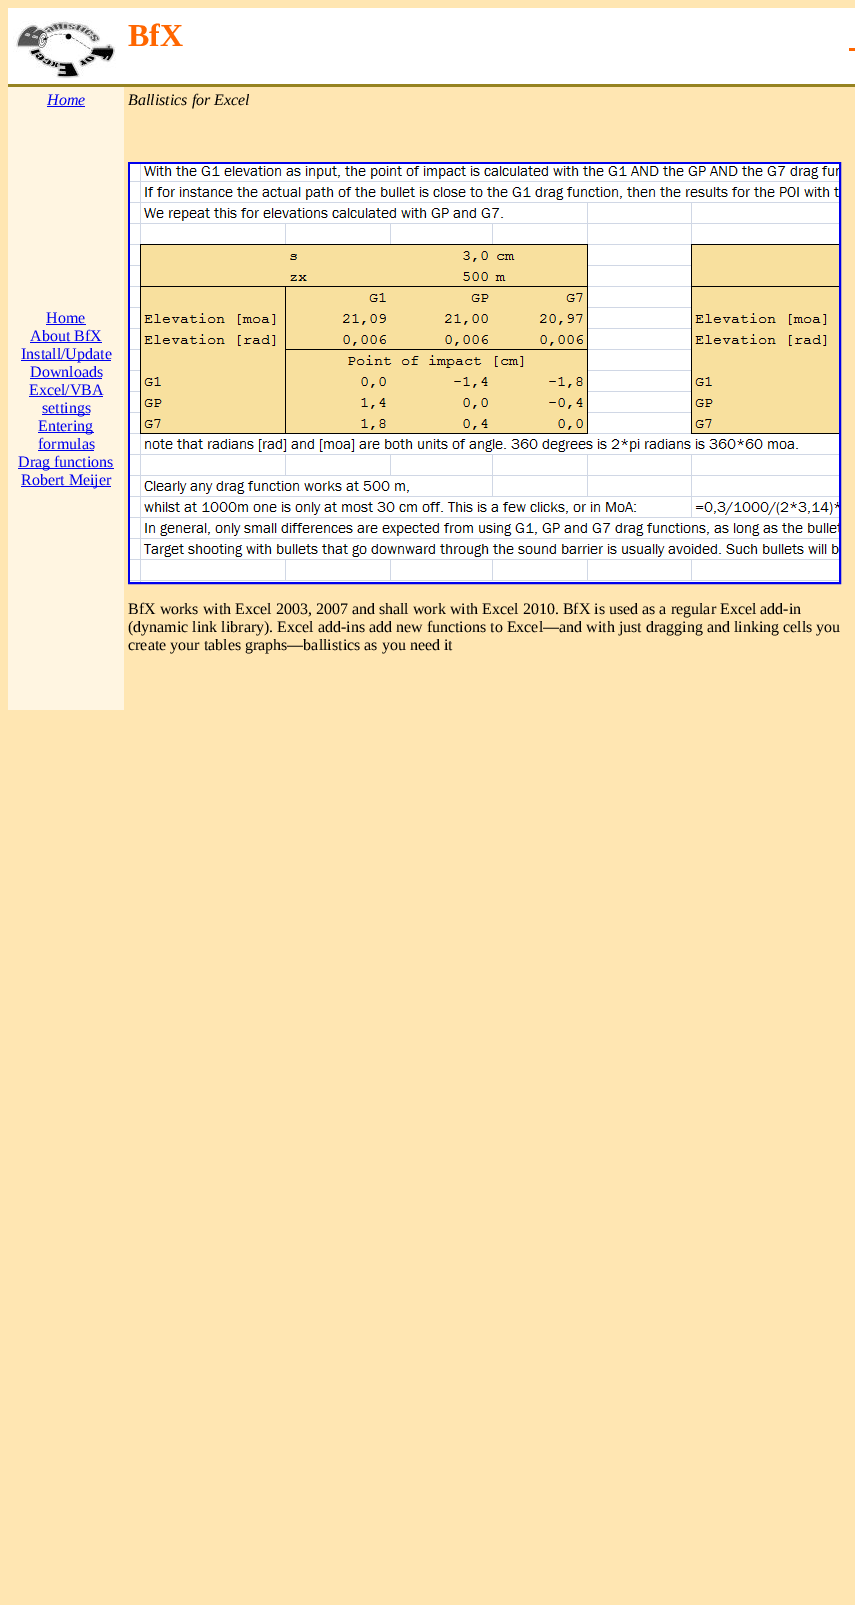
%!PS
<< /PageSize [855 1605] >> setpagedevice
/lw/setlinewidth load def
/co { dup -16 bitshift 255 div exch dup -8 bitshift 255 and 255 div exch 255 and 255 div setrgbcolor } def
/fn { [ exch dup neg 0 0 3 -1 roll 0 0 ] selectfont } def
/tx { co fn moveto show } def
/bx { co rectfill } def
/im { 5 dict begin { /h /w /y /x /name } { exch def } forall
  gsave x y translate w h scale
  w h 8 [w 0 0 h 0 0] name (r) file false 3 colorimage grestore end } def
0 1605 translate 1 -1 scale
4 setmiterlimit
0 0 855 1605 16#FFE6B2 bx
8 8 847 76 16#FFFFFF bx
(media/1.raw) 13 20 103 59 im
849 48 6 3 16#FF6600 bx
8 87 116 623 16#FFF5E1 bx
8 84 847 3 16#968321 bx
47 106 38 1 16#0000EE bx
46 324 40 1 16#0000EE bx
30 342 72 1 16#0000EE bx
21 360 90 1 16#0000EE bx
30 378 72 1 16#0000EE bx
29 396 74 1 16#0000EE bx
42 414 48 1 16#0000EE bx
38 432 56 1 16#0000EE bx
38 450 56 1 16#0000EE bx
18 468 96 1 16#0000EE bx
21 486 90 1 16#0000EE bx
2 lw
129 163 711 420 rectstroke
(media/2.raw) 130 164 709 418 im
(BfX) 128 46 /LiberationSerif-Bold 32 16#FF6600 tx
(Home) 47 105 /LiberationSerif-Italic 16 16#0000EE tx
(Ballistics for Excel) 128 105 /LiberationSerif-Italic 16 16#000000 tx
(Home) 46 323 /LiberationSerif-Regular 16 16#0000EE tx
(About BfX) 30 341 /LiberationSerif-Regular 16 16#0000EE tx
(Install/Update) 21 359 /LiberationSerif-Regular 16 16#0000EE tx
(Downloads) 30 377 /LiberationSerif-Regular 16 16#0000EE tx
(Excel/VBA) 29 395 /LiberationSerif-Regular 16 16#0000EE tx
(settings) 42 413 /LiberationSerif-Regular 16 16#0000EE tx
(Entering) 38 431 /LiberationSerif-Regular 16 16#0000EE tx
(formulas) 38 449 /LiberationSerif-Regular 16 16#0000EE tx
(Drag functions) 18 467 /LiberationSerif-Regular 16 16#0000EE tx
(Robert Meijer) 21 485 /LiberationSerif-Regular 16 16#0000EE tx
(BfX works with Excel 2003, 2007 and shall work with Excel 2010. BfX is used as a regular Excel add-in) 128 614 /LiberationSerif-Regular 16 16#000000 tx
(\(dynamic link library\). Excel add-ins add new functions to Excel—and with just dragging and linking cells you) 128 632 /LiberationSerif-Regular 16 16#000000 tx
(create your tables graphs—ballistics as you need it) 128 650 /LiberationSerif-Regular 16 16#000000 tx
showpage
